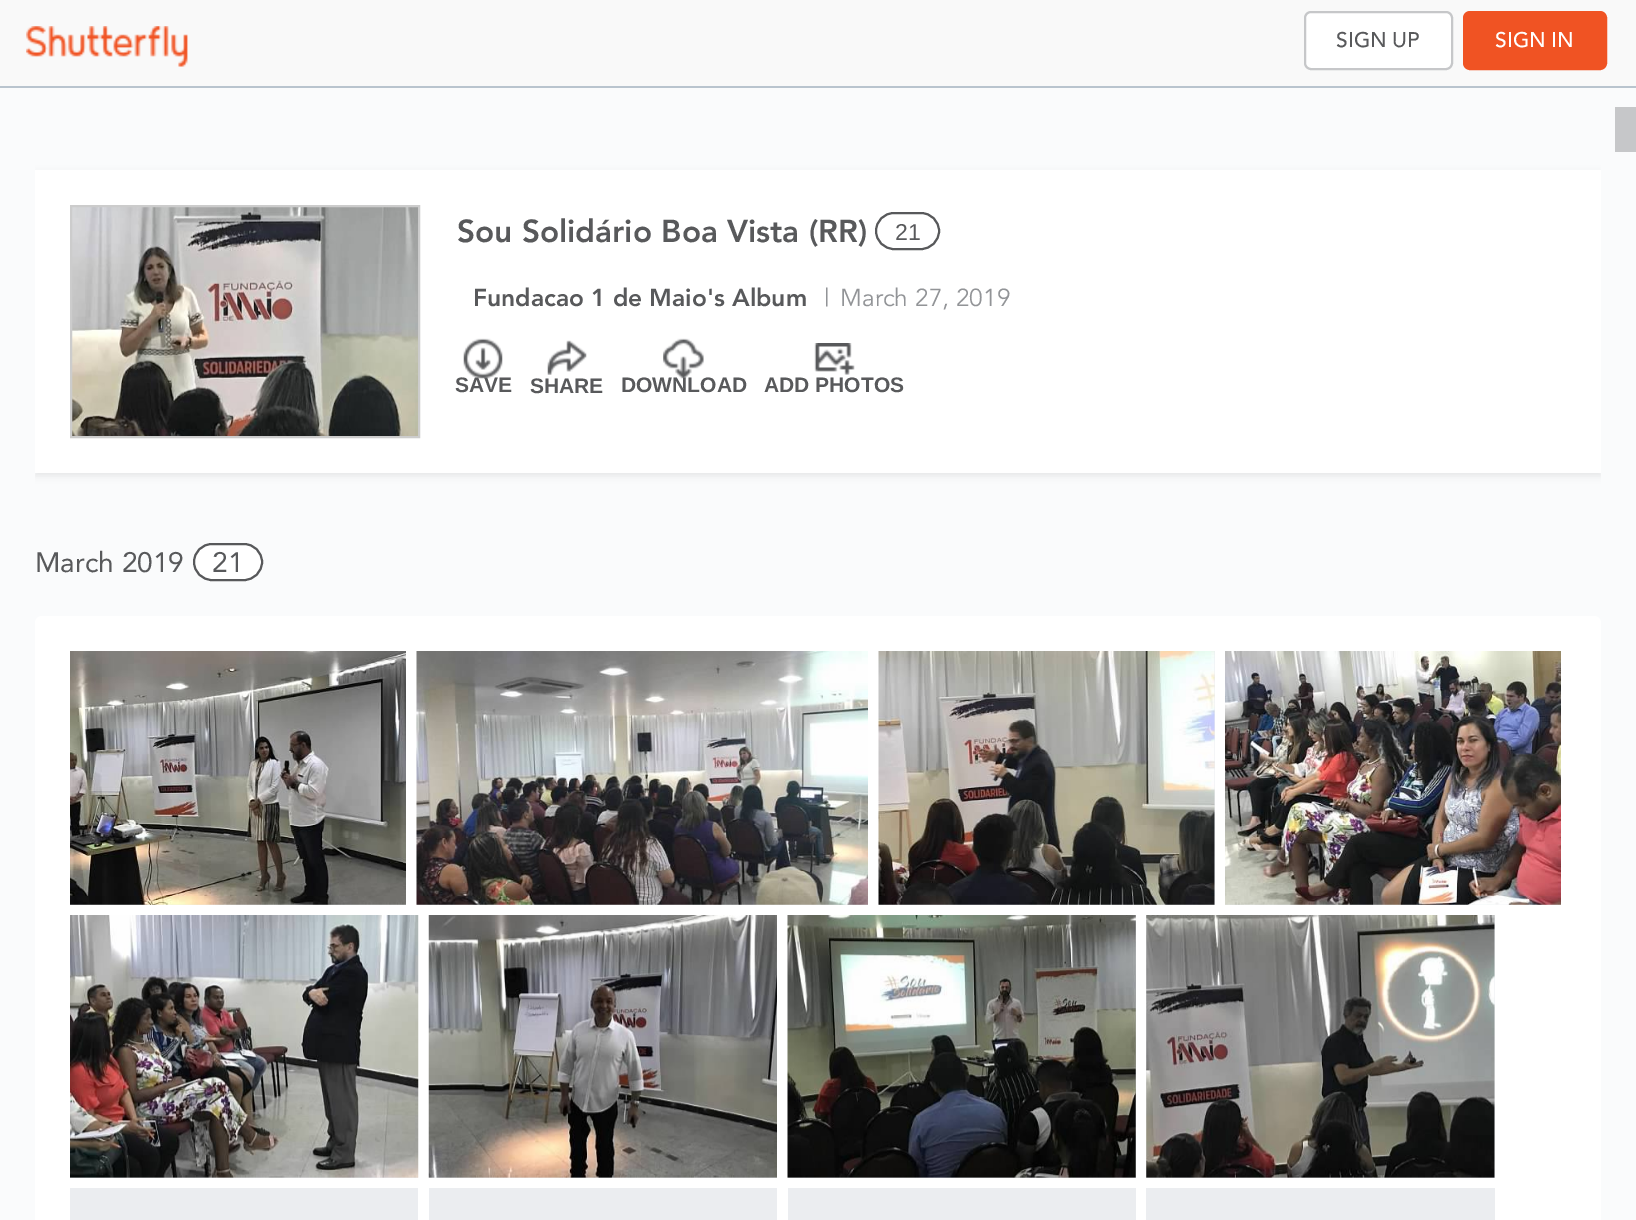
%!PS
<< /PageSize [1636 1220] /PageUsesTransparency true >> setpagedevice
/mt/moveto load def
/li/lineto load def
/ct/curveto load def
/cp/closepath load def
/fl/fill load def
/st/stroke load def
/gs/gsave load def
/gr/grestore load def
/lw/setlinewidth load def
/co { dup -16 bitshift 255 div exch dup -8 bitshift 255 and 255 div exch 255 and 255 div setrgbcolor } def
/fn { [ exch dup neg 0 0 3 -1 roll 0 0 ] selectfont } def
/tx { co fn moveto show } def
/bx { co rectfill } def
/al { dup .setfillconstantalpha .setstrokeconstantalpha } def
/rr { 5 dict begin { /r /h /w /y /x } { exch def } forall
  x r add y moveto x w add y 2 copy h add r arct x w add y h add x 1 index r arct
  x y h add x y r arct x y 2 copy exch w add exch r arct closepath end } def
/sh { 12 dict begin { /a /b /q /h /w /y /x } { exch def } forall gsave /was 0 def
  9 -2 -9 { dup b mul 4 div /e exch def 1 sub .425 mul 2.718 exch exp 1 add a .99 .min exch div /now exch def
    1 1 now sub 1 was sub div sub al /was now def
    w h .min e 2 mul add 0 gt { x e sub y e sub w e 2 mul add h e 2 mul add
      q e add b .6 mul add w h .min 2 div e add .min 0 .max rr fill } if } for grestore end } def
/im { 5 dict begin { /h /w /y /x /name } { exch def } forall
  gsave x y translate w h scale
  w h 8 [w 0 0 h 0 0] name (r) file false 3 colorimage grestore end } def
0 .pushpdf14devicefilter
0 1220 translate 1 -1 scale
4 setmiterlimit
0 0 1636 1220 16#FAFBFC bx
0 0 1636 86 16#F9F9F9 bx
0 86 1636 2 16#B9C4CE bx
(media/1.raw) 26 26 162 41 im
16#FFFFFF co
1305 12 147 57 6 rr gs fl gr
16#C6C7C9 co
2 lw
st
16#F05323 co
1464 12 142 57 6 rr gs fl gr
st
1615 107 21 45 16#C6C7C9 bx
gs
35 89 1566 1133 rectclip
16#000000 co
35 173 1566 303 0 3.5 .07 sh
gr
35 170 1566 303 16#FFFFFF bx
(media/2.raw) 72 207 346 229 im
16#CCCCCC co
71 206 348 231 rectstroke
16#58595B co
876 213 63 36 18 rr st
(media/3.raw) 463 338 40 41 im
(media/4.raw) 547 340 40 35 im
(media/5.raw) 663 338 41 41 im
(media/6.raw) 814 343 41 32 im
16#FFFFFF co
194 544 68 36 18 rr gs fl gr
16#58595B co
st
16#FFFFFF co
42 616 mt 1594 616 li 1598 616 1601 619 1601 623 ct 1601 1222 li 35 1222 li 35 623 li 35 619 38 616 42 616 ct cp fl
(media/7.raw) 70 651 336 254 im
(media/8.raw) 416 651 452 254 im
879 651 336 254 16#EBEDF0 bx
(media/9.raw) 878 651 337 254 im
(media/10.raw) 1225 651 336 254 im
70 1177 348 1 16#EBEDF0 bx
(media/11.raw) 70 915 349 263 im
429 1177 348 1 16#EBEDF0 bx
(media/12.raw) 428 915 349 263 im
788 915 348 263 16#EBEDF0 bx
(media/13.raw) 787 915 349 263 im
1146 915 349 263 16#EBEDF0 bx
(media/14.raw) 1146 915 349 263 im
70 1188 348 32 16#EBEDF0 bx
429 1188 348 32 16#EBEDF0 bx
788 1188 348 32 16#EBEDF0 bx
1146 1188 349 32 16#EBEDF0 bx
(SIGN UP) 1336 47 /Avenir-Medium 21 16#58595B tx
(SIGN IN) 1495 47 /Avenir-Medium 21 16#FFFFFF tx
(Sou Solidário Boa Vista \(RR\)) 457 242 /Avenir-Black 31.5 16#58595B tx
(21) 895 240 /LiberationSans-Regular 23 16#58595B tx
(Fundacao 1 de Maio's Album) 473 306 /Avenir-Black 24.5 16#58595B tx
(|) 824 306 /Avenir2-Regular 24.5 16#929497 tx
(March 27, 2019) 840 306 /Avenir2-Regular 24.5 16#929497 tx
(SAVE) 455 392 /LiberationSans-Bold 21 16#58595B tx
(SHARE) 530 393 /LiberationSans-Bold 21 16#58595B tx
(DOWNLOAD) 621 392 /LiberationSans-Bold 21 16#58595B tx
(ADD PHOTOS) 764 392 /LiberationSans-Bold 21 16#58595B tx
(March 2019) 35 572 /Avenir-Regular 28 16#58595B tx
(21) 212 572 /Avenir-Regular 28 16#58595B tx
.poppdf14devicefilter showpage
